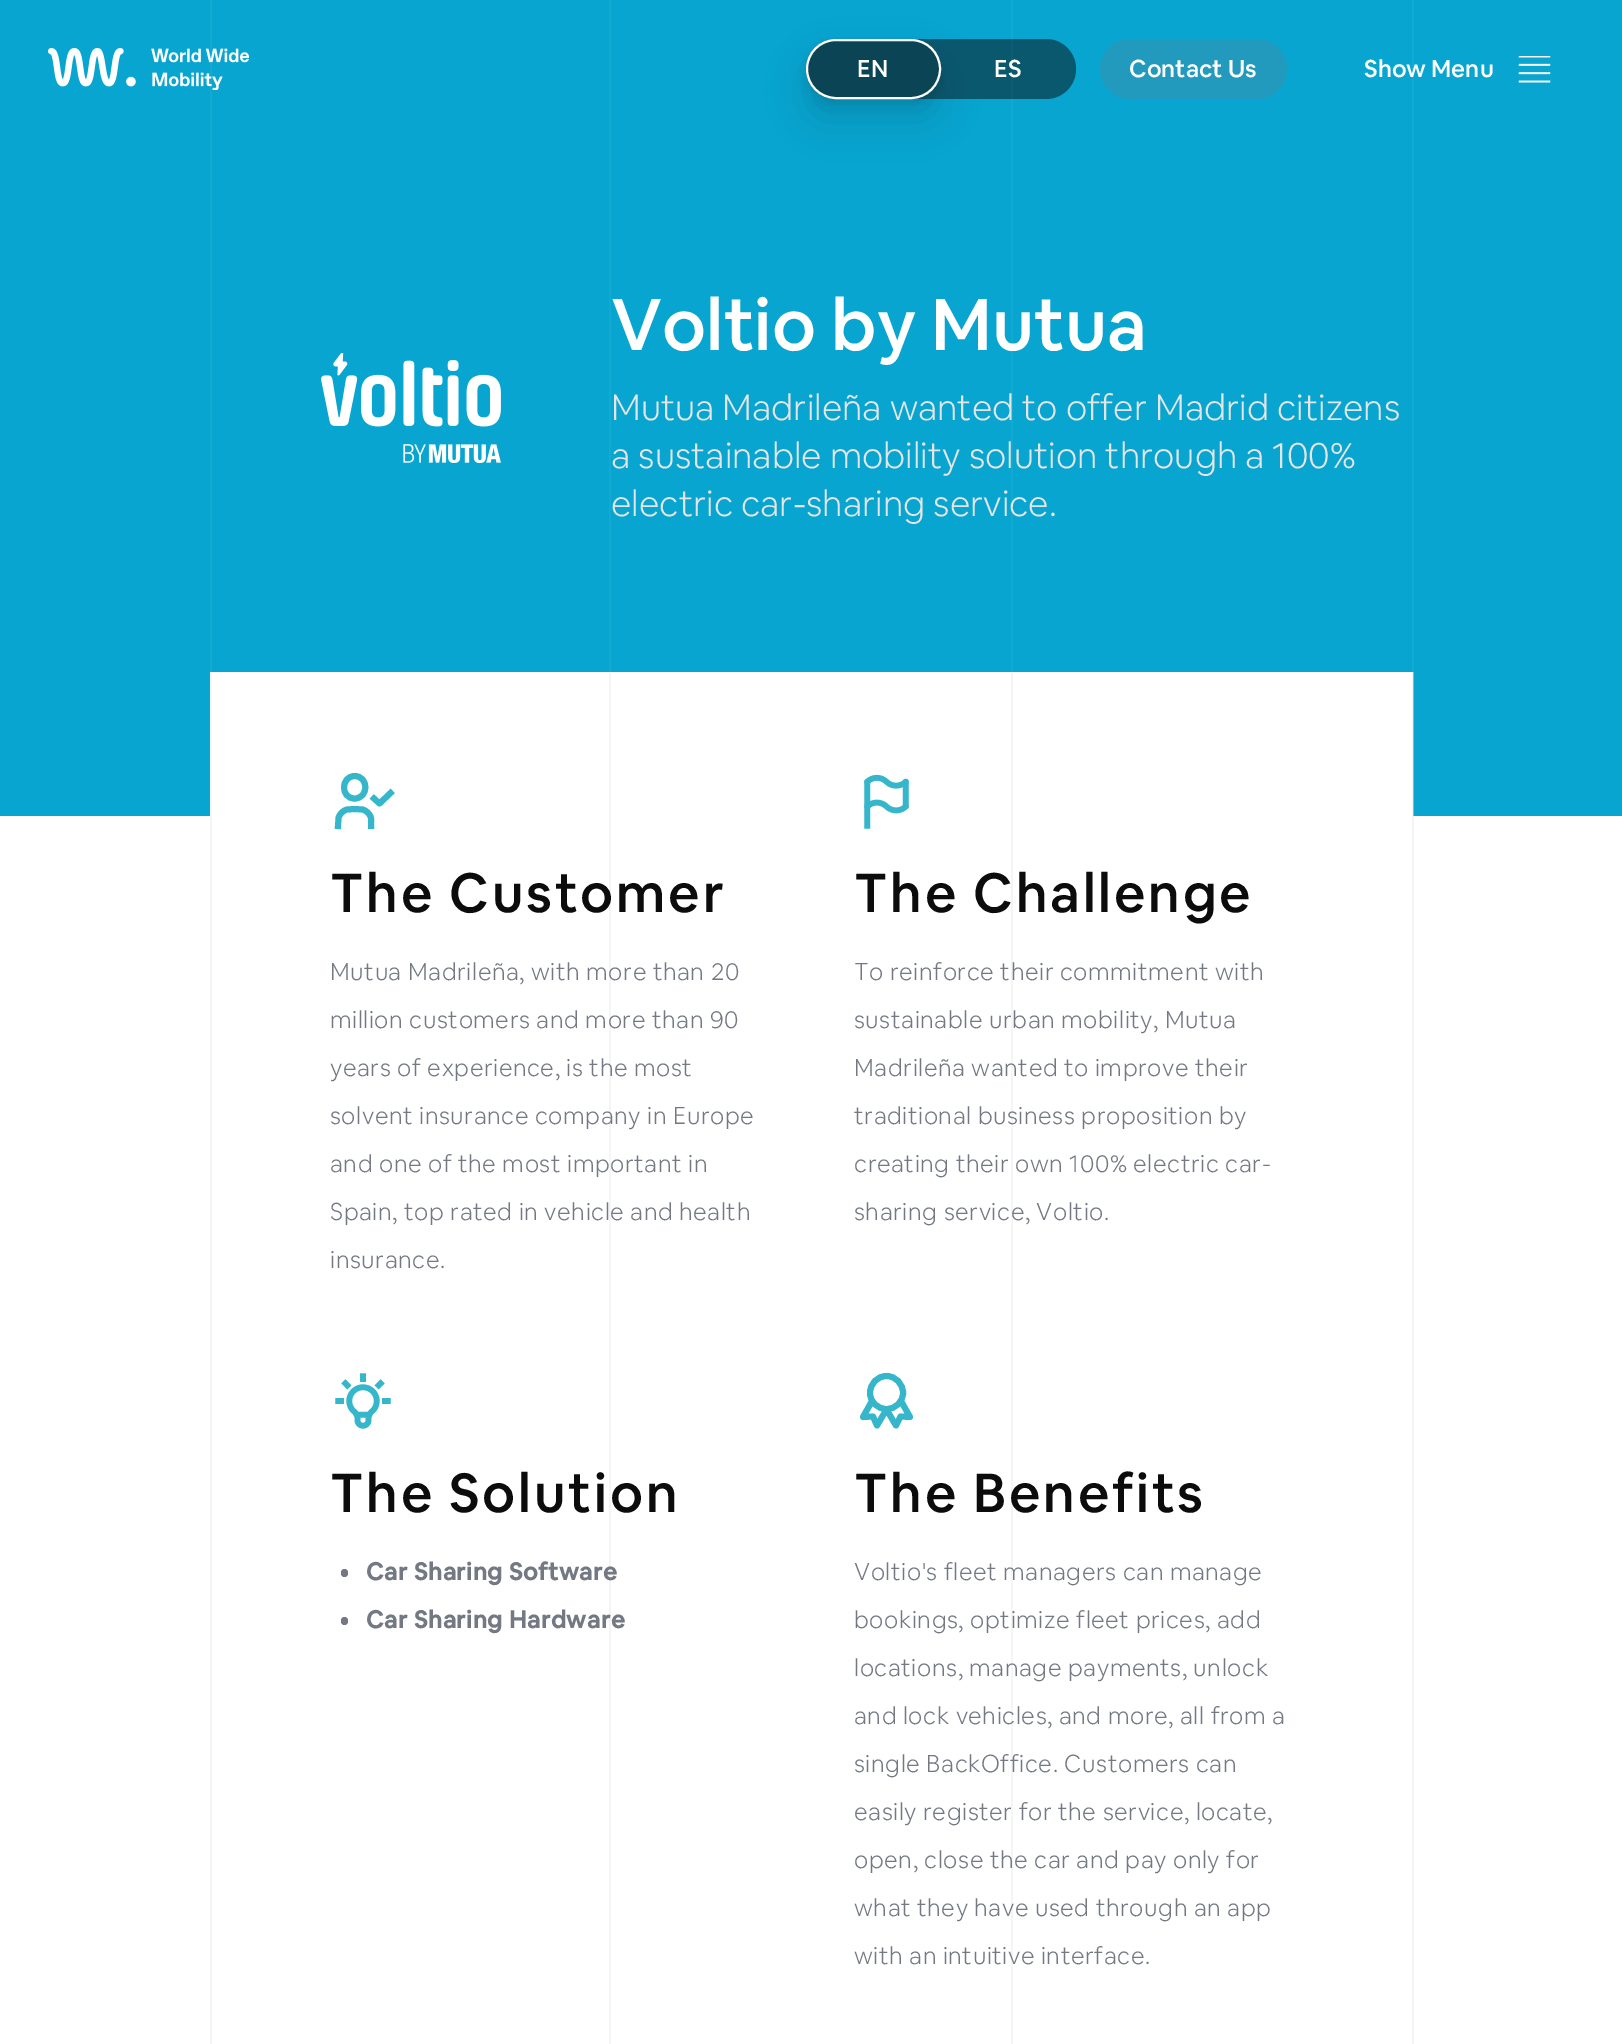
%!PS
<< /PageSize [1622 2044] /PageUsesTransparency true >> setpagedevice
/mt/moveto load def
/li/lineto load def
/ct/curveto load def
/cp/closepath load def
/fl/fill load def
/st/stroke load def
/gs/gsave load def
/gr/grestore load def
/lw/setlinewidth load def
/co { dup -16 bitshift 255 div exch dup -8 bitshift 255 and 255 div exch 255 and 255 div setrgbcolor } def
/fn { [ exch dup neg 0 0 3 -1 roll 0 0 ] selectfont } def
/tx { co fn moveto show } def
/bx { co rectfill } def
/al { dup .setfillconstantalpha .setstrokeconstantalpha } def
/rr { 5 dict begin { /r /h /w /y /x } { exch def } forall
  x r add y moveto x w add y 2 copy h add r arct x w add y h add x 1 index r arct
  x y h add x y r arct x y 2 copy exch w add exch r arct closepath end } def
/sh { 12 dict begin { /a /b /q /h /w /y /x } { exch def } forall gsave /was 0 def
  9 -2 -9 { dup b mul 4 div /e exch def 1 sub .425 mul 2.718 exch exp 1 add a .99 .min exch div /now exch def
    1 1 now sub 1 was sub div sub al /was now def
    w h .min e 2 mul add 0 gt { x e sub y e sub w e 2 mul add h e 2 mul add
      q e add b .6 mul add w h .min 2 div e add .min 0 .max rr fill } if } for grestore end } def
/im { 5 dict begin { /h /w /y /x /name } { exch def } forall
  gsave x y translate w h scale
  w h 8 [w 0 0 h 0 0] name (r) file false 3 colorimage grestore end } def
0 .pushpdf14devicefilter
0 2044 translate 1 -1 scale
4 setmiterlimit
0 0 1622 2044 16#FFFFFF bx
1413 816 1 1228 16#F5F5F5 bx
0 0 1622 816 16#07A5D0 bx
210 0 2 672 16#13AAD2 bx
(media/1.raw) 48 48 201 42 im
1011 0 2 672 16#13AAD2 bx
0.5 al
16#0C0C0C co
806 39 270 60 30 rr fl
gs
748 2 mt 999 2 li 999 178 li 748 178 li cp 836 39 mt 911 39 li 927.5 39 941 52.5 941 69 ct 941 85.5 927.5 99 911 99 ct 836 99 li 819.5 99 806 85.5 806 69 ct 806 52.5 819.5 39 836 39 ct cp eoclip newpath
1 al
16#000000 co
806 60 135 60 30 19 .12 sh
gr
gs
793 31 mt 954 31 li 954 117 li 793 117 li cp 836 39 mt 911 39 li 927.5 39 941 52.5 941 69 ct 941 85.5 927.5 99 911 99 ct 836 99 li 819.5 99 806 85.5 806 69 ct 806 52.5 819.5 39 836 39 ct cp eoclip newpath
1 al
16#000000 co
806 44 135 60 30 4 .08 sh
gr
0.25 al
807 40 133 58 29 rr fl
1 al
16#FFFFFF co
2 lw
807 40 133 58 29 rr st
16#229ABD co
1100 39 187 60 30 rr fl
(media/2.raw) 1518 56 33 27 im
609 0 2 672 16#13AAD2 bx
1412 0 2 672 16#13AAD2 bx
1413 672 1 144 16#67C2DA bx
(media/3.raw) 321 353 180 110 im
210 672 2 1372 16#F5F5F5 bx
212 672 397 144 16#FFFFFF bx
609 672 2 1372 16#F5F5F5 bx
611 672 400 144 16#FFFFFF bx
1011 672 2 1372 16#F5F5F5 bx
1013 672 399 144 16#FFFFFF bx
1412 672 1 1372 16#F5F5F5 bx
16#36B6CB co
6 lw
1 setlinecap
1 setlinejoin
354.5 798.5 mt 369 798.5 369 776 354.5 776 ct 340.5 776.5 340.5 798.5 354.5 798.5 ct cp st
2 setlinecap
338 826 mt 338.5 818 li 339.5 814 343 810.5 347 809.5 ct 355 809 li 362.5 809.5 li 366.5 810.5 370 814 371 818 ct 371 826 li 374 798.5 mt 379.5 803.5 li 390.5 793 li st
(media/4.raw) 864 774 45 55 im
(media/5.raw) 335 1373 56 56 im
16#737882 co
341 1569 7 8 3.5 rr fl
341 1617 7 8 3.5 rr fl
16#36B6CB co
1 setlinecap
886.5 1409 mt 895.5 1409 903 1402 903 1393 ct 903 1383.5 895.5 1376 886.5 1376 ct 877.5 1376 870 1383.5 870 1393 ct 870 1402 877.5 1409 886.5 1409 ct cp 886.5 1409.5 mt 896 1425.5 li 900.5 1416.5 li 910 1417 li 901 1401 li 872 1401 mt 863 1417 li 873 1416.5 li 877 1425.5 li 886.5 1409.5 li st
(EN) 857 77 /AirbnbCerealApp-Medium 24 16#FFFFFF tx
(ES) 994 77 /AirbnbCerealApp-Medium 24 16#FFFFFF tx
(Contact Us) 1129 77 /AirbnbCerealApp-Medium 24 16#FFFFFF tx
(Show Menu) 1364 77 /AirbnbCerealApp-Medium 24 16#FFFFFF tx
(Voltio by Mutua) 611 350 /AirbnbCerealApp-Medium 72 16#FFFFFF tx
(Mutua Madrileña wanted to offer Madrid citizens) 611 420 /AirbnbCerealApp-Light 36 16#E5E5E5 tx
(a sustainable mobility solution through a 100%) 611 468 /AirbnbCerealApp-Light 36 16#E5E5E5 tx
(electric car-sharing service.) 611 516 /AirbnbCerealApp-Light 36 16#E5E5E5 tx
/AirbnbCerealApp-Medium 54 fn
16#0C0C0C co
330 912 mt 2.75 0 (The Customer) ashow
/AirbnbCerealApp-Light 24 fn
16#737882 co
330 980 mt .6 0 (Mutua Madrileña, with more than 20) ashow
330 1028 mt .6 0 (million customers and more than 90) ashow
330 1076 mt .6 0 (years of experience, is the most) ashow
330 1124 mt .6 0 (solvent insurance company in Europe) ashow
330 1172 mt .6 0 (and one of the most important in) ashow
330 1220 mt .6 0 (Spain, top rated in vehicle and health) ashow
330 1268 mt .6 0 (insurance.) ashow
/AirbnbCerealApp-Medium 54 fn
16#0C0C0C co
854 912 mt 2.75 0 (The Challenge) ashow
/AirbnbCerealApp-Light 24 fn
16#737882 co
854 980 mt .6 0 (To reinforce their commitment with) ashow
854 1028 mt .6 0 (sustainable urban mobility, Mutua) ashow
854 1076 mt .6 0 (Madrileña wanted to improve their) ashow
854 1124 mt .6 0 (traditional business proposition by) ashow
854 1172 mt .6 0 (creating their own 100% electric car-) ashow
854 1220 mt .6 0 (sharing service, Voltio.) ashow
/AirbnbCerealApp-Medium 54 fn
16#0C0C0C co
330 1512 mt 2.75 0 (The Solution) ashow
/AirbnbCerealApp-Bold 24 fn
16#737882 co
366 1580 mt .6 0 (Car Sharing Software) ashow
366 1628 mt .6 0 (Car Sharing Hardware) ashow
/AirbnbCerealApp-Medium 54 fn
16#0C0C0C co
854 1512 mt 2.75 0 (The Benefits) ashow
/AirbnbCerealApp-Light 24 fn
16#737882 co
854 1580 mt .6 0 (Voltio's fleet managers can manage) ashow
854 1628 mt .6 0 (bookings, optimize fleet prices, add) ashow
854 1676 mt .6 0 (locations, manage payments, unlock) ashow
854 1724 mt .6 0 (and lock vehicles, and more, all from a) ashow
854 1772 mt .6 0 (single BackOffice. Customers can) ashow
854 1820 mt .6 0 (easily register for the service, locate,) ashow
854 1868 mt .6 0 (open, close the car and pay only for) ashow
854 1916 mt .6 0 (what they have used through an app) ashow
854 1964 mt .6 0 (with an intuitive interface.) ashow
.poppdf14devicefilter showpage
